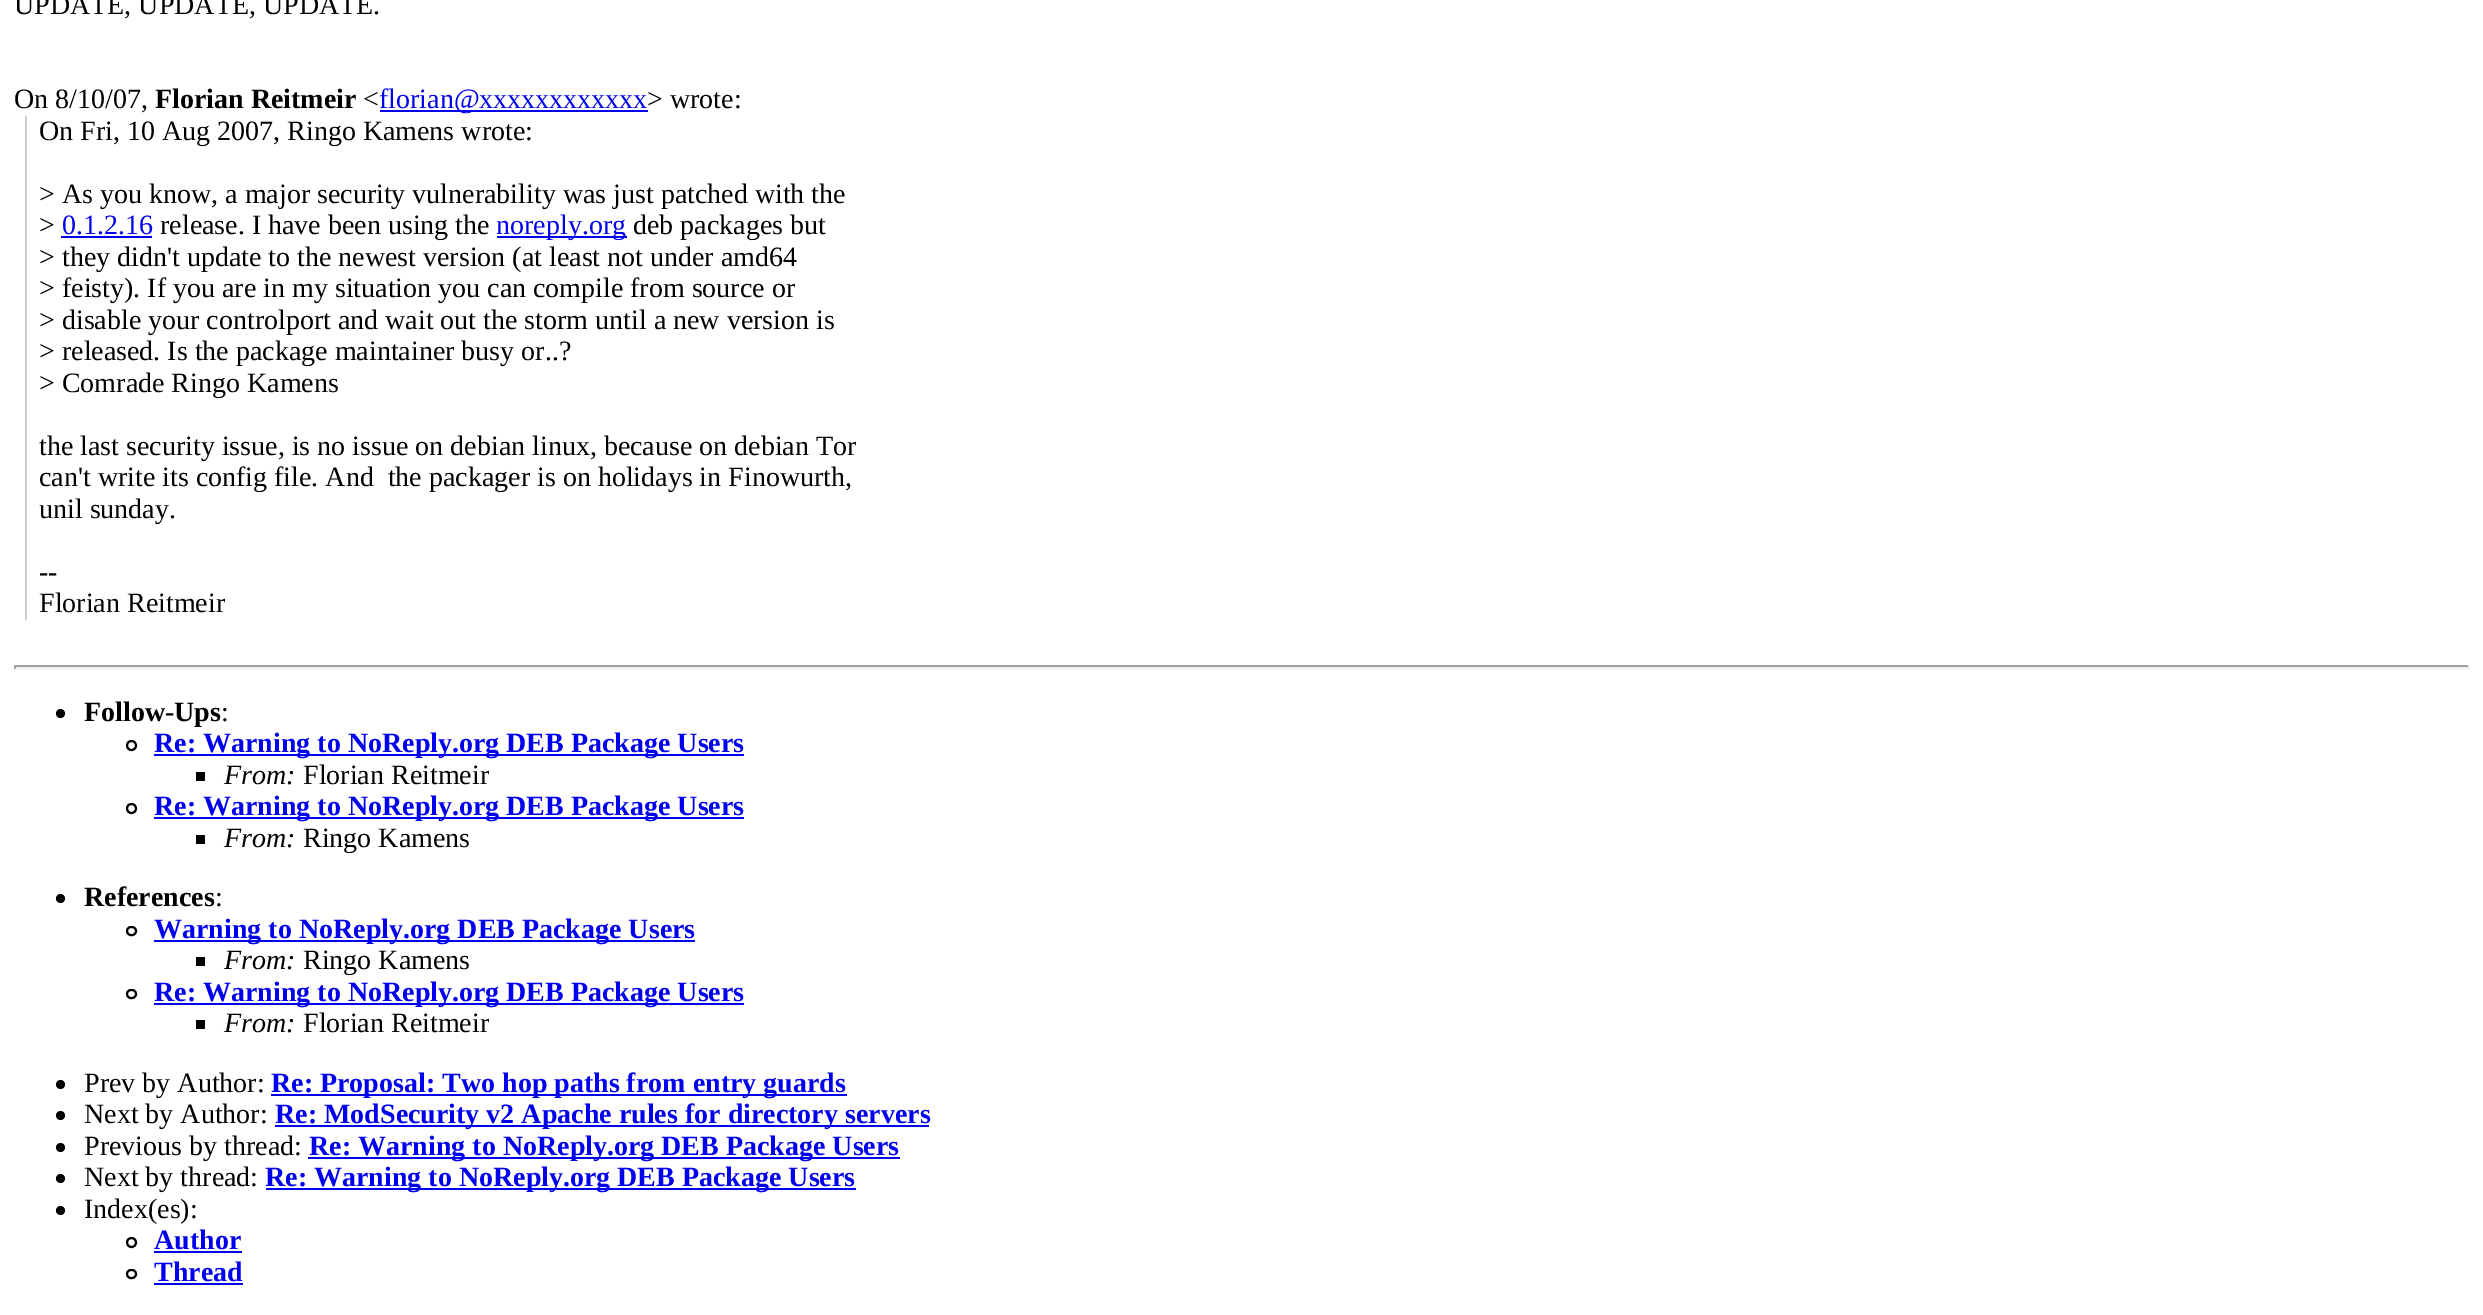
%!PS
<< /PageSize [2483 1315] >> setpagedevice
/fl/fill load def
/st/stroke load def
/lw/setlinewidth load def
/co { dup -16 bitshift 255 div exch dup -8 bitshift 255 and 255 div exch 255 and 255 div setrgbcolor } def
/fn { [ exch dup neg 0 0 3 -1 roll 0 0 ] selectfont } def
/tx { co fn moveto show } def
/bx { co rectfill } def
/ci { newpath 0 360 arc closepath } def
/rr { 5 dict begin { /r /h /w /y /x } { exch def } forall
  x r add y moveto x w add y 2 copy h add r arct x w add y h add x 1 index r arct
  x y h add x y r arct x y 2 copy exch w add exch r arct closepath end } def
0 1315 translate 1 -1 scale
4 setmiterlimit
0 0 2483 1315 16#FFFFFF bx
380 110 268 2 16#0000EE bx
25 116 2 504 16#CCCCCC bx
61 236 91 2 16#0000EE bx
497 236 130 2 16#0000EE bx
14 665 2455 2 16#9F9F9F bx
2468 665 2 4 16#EEEEEE bx
14 667 2455 2 16#EEEEEE bx
14 665 2 4 16#9F9F9F bx
16#000000 co
60.5 713.5 4.5 ci fl
2 lw
131.5 745.5 4.5 ci st
154 754 590 2 16#0000EE bx
196 772 9 9 16#000000 bx
131.5 808.5 4.5 ci st
154 817 590 2 16#0000EE bx
196 835 9 9 16#000000 bx
60.5 898.5 4.5 ci fl
127 927 9 8 4 rr st
154 940 541 2 16#0000EE bx
196 957 9 9 16#000000 bx
127 990 9 8 4 rr st
154 1003 590 2 16#0000EE bx
196 1020 9 9 16#000000 bx
60.5 1084.5 4.5 ci fl
271 1094 576 2 16#0000EE bx
16#000000 co
60.5 1115.5 4.5 ci fl
275 1125 654 2 16#0000EE bx
16#000000 co
60.5 1147.5 4.5 ci fl
308 1157 592 2 16#0000EE bx
16#000000 co
60.5 1178.5 4.5 ci fl
266 1188 590 2 16#0000EE bx
16#000000 co
60.5 1210.5 4.5 ci fl
131.5 1242.5 4.5 ci st
154 1251 88 2 16#0000EE bx
16#000000 co
127 1270 9 8 4 rr st
154 1283 89 2 16#0000EE bx
(UPDATE, UPDATE, UPDATE.) 14 14 /LiberationSerif-Regular 28 16#000000 tx
(On 8/10/07,) 14 108 /LiberationSerif-Regular 28 16#000000 tx
(Florian Reitmeir) 155 108 /LiberationSerif-Bold 28 16#000000 tx
(<) 363 108 /LiberationSerif-Regular 28 16#000000 tx
(florian@xxxxxxxxxxxx) 379 108 /LiberationSerif-Regular 28 16#0000EE tx
(> wrote:) 647 108 /LiberationSerif-Regular 28 16#000000 tx
(On Fri, 10 Aug 2007, Ringo Kamens wrote:) 39 140 /LiberationSerif-Regular 28 16#000000 tx
(> As you know, a major security vulnerability was just patched with the) 39 203 /LiberationSerif-Regular 28 16#000000 tx
(>) 39 234 /LiberationSerif-Regular 28 16#000000 tx
(0.1.2.16) 62 234 /LiberationSerif-Regular 28 16#0000EE tx
(release. I have been using the) 160 234 /LiberationSerif-Regular 28 16#000000 tx
(noreply.org) 496 234 /LiberationSerif-Regular 28 16#0000EE tx
(deb packages but) 633 234 /LiberationSerif-Regular 28 16#000000 tx
(> they didn't update to the newest version \(at least not under amd64) 39 266 /LiberationSerif-Regular 28 16#000000 tx
(> feisty\). If you are in my situation you can compile from source or) 39 297 /LiberationSerif-Regular 28 16#000000 tx
(> disable your controlport and wait out the storm until a new version is) 39 329 /LiberationSerif-Regular 28 16#000000 tx
(> released. Is the package maintainer busy or..?) 39 360 /LiberationSerif-Regular 28 16#000000 tx
(> Comrade Ringo Kamens) 39 392 /LiberationSerif-Regular 28 16#000000 tx
(the last security issue, is no issue on debian linux, because on debian Tor) 39 455 /LiberationSerif-Regular 28 16#000000 tx
(can't write its config file. And  the packager is on holidays in Finowurth,) 39 486 /LiberationSerif-Regular 28 16#000000 tx
(unil sunday.) 39 518 /LiberationSerif-Regular 28 16#000000 tx
(--) 39 581 /LiberationSerif-Regular 28 16#000000 tx
(Florian Reitmeir) 39 612 /LiberationSerif-Regular 28 16#000000 tx
(Follow-Ups) 84 721 /LiberationSerif-Bold 28 16#000000 tx
(:) 221 721 /LiberationSerif-Regular 28 16#000000 tx
(Re: Warning to NoReply.org DEB Package Users) 154 752 /LiberationSerif-Bold 28 16#0000EE tx
(From:) 224 784 /LiberationSerif-Italic 28 16#000000 tx
(Florian Reitmeir) 303 784 /LiberationSerif-Regular 28 16#000000 tx
(Re: Warning to NoReply.org DEB Package Users) 154 815 /LiberationSerif-Bold 28 16#0000EE tx
(From:) 224 847 /LiberationSerif-Italic 28 16#000000 tx
(Ringo Kamens) 303 847 /LiberationSerif-Regular 28 16#000000 tx
(References) 84 906 /LiberationSerif-Bold 28 16#000000 tx
(:) 215 906 /LiberationSerif-Regular 28 16#000000 tx
(Warning to NoReply.org DEB Package Users) 154 938 /LiberationSerif-Bold 28 16#0000EE tx
(From:) 224 969 /LiberationSerif-Italic 28 16#000000 tx
(Ringo Kamens) 303 969 /LiberationSerif-Regular 28 16#000000 tx
(Re: Warning to NoReply.org DEB Package Users) 154 1001 /LiberationSerif-Bold 28 16#0000EE tx
(From:) 224 1032 /LiberationSerif-Italic 28 16#000000 tx
(Florian Reitmeir) 303 1032 /LiberationSerif-Regular 28 16#000000 tx
(Prev by Author:) 84 1092 /LiberationSerif-Regular 28 16#000000 tx
(Re: Proposal: Two hop paths from entry guards) 271 1092 /LiberationSerif-Bold 28 16#0000EE tx
(Next by Author:) 84 1123 /LiberationSerif-Regular 28 16#000000 tx
(Re: ModSecurity v2 Apache rules for directory servers) 275 1123 /LiberationSerif-Bold 28 16#0000EE tx
(Previous by thread:) 84 1155 /LiberationSerif-Regular 28 16#000000 tx
(Re: Warning to NoReply.org DEB Package Users) 309 1155 /LiberationSerif-Bold 28 16#0000EE tx
(Next by thread:) 84 1186 /LiberationSerif-Regular 28 16#000000 tx
(Re: Warning to NoReply.org DEB Package Users) 265 1186 /LiberationSerif-Bold 28 16#0000EE tx
(Index\(es\):) 84 1218 /LiberationSerif-Regular 28 16#000000 tx
(Author) 154 1249 /LiberationSerif-Bold 28 16#0000EE tx
(Thread) 154 1281 /LiberationSerif-Bold 28 16#0000EE tx
showpage
